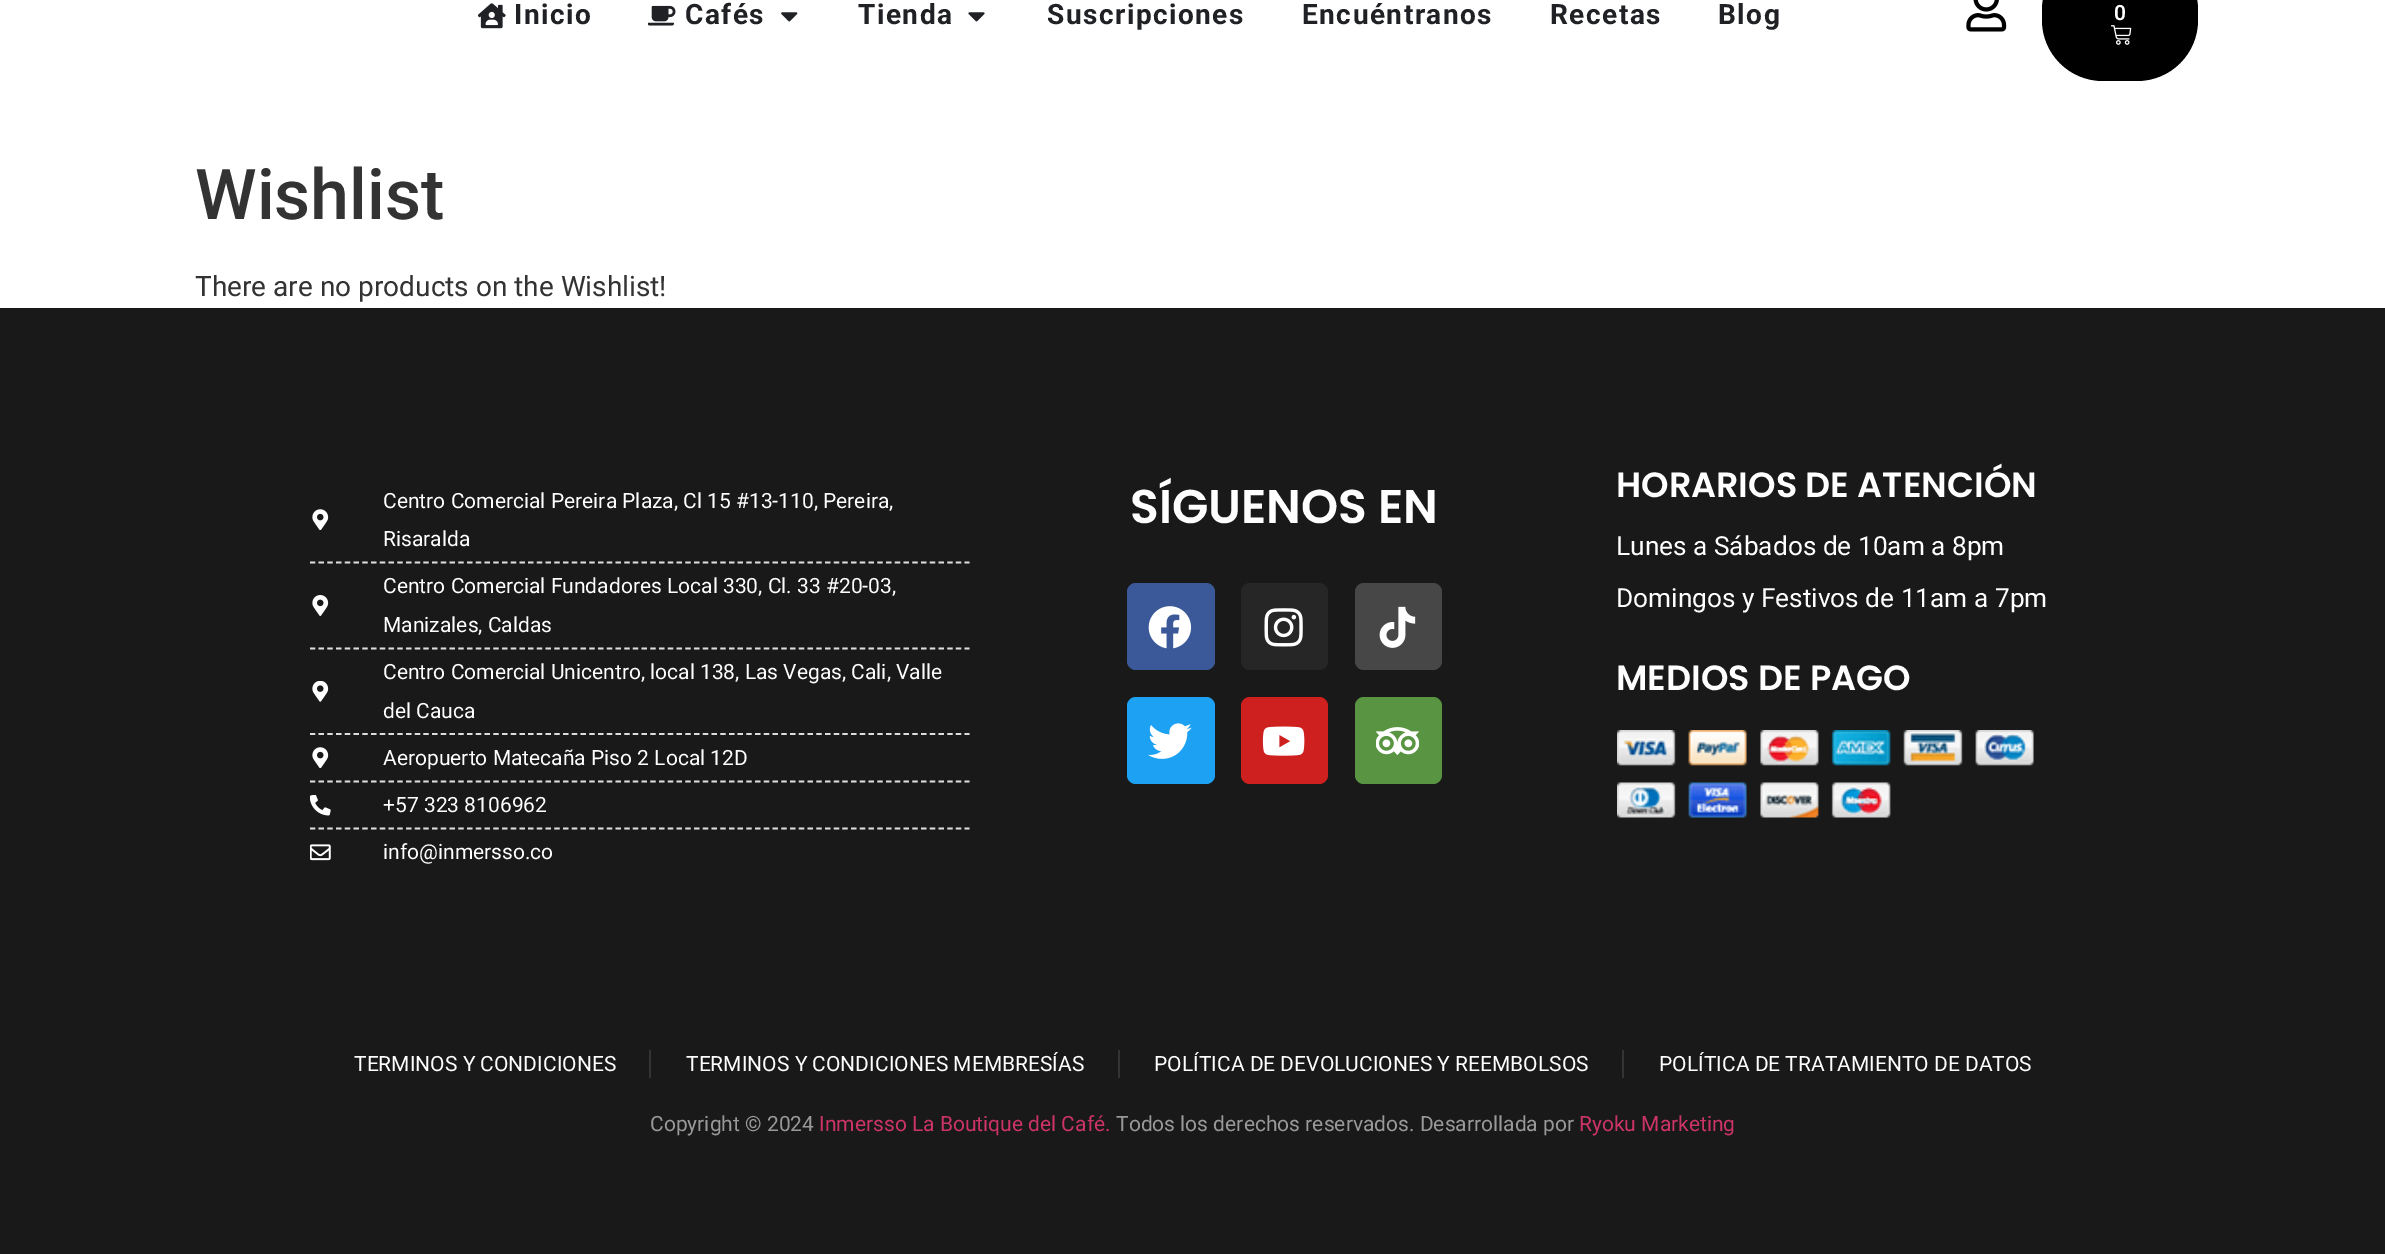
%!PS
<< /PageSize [2385 1254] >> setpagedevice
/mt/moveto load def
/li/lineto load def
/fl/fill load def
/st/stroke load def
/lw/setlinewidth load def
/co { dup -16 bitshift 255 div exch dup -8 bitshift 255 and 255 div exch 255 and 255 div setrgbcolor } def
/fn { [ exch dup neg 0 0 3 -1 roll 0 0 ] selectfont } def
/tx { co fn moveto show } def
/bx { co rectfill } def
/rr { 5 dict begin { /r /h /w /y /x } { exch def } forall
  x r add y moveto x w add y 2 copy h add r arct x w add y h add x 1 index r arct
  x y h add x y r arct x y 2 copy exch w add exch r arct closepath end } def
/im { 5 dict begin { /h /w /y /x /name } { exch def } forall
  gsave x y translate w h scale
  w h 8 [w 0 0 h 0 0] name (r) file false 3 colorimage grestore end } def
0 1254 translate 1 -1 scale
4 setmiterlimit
0 0 2385 1254 16#FFFFFF bx
(media/1.raw) 478 3 28 26 im
(media/2.raw) 648 5 28 21 im
(media/3.raw) 781 12 17 10 im
(media/4.raw) 968 12 17 10 im
(media/5.raw) 1966 0 41 32 im
16#000000 co
2042 -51 156 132 61 rr fl
(media/6.raw) 2111 25 21 20 im
0 308 2385 946 16#191919 bx
(media/7.raw) 312 509 17 21 im
16#DDDDDD co
1.8 lw
[5.25 3.48] 0 setdash
310 562.5 mt 969.5 562.5 li st
(media/8.raw) 312 595 17 21 im
310 648.5 mt 969.5 648.5 li st
(media/9.raw) 312 681 17 21 im
310 734 mt 969.5 734 li st
(media/7.raw) 312 747 17 21 im
310 781.5 mt 969.5 781.5 li st
(media/10.raw) 310 795 21 21 im
310 828.5 mt 969.5 828.5 li st
(media/11.raw) 310 844 21 17 im
16#3B5998 co
1127 583 88 87 9 rr fl
(media/12.raw) 1148 606 44 43 im
16#262626 co
1241 583 87 87 9 rr fl
(media/13.raw) 1264 608 39 39 im
16#474747 co
1355 583 87 87 9 rr fl
(media/14.raw) 1379 606 37 42 im
16#1DA1F2 co
1127 697 88 87 9 rr fl
(media/15.raw) 1148 723 44 36 im
16#CD201F co
1241 697 87 87 9 rr fl
(media/16.raw) 1262 726 43 30 im
16#589442 co
1355 697 87 87 9 rr fl
(media/17.raw) 1376 727 43 29 im
(media/18.raw) 1617 730 417 88 im
649 1050 2 28 16#343434 bx
1118 1050 2 28 16#343434 bx
1622 1050 2 28 16#343434 bx
/Roboto-Bold 28 fn
16#1F2124 co
514 24 mt 1.5 0 (Inicio) ashow
685 24 mt 1.5 0 (Cafés) ashow
858 24 mt 1.5 0 (Tienda) ashow
1047 24 mt 1.5 0 (Suscripciones) ashow
1302 24 mt 1.5 0 (Encuéntranos) ashow
1550 24 mt 1.5 0 (Recetas) ashow
1718 24 mt 1.5 0 (Blog) ashow
(0) 2114 20 /Roboto-SemiBold 21 16#FFFFFF tx
(Wishlist) 195 219 /Roboto-Medium 70 16#333333 tx
(There are no products on the Wishlist!) 195 296 /Roboto-Regular 28 16#333333 tx
(Centro Comercial Pereira Plaza, Cl 15 #13-110, Pereira,) 383 508 /Roboto-Regular 21 16#FFFFFF tx
(Risaralda) 383 546 /Roboto-Regular 21 16#FFFFFF tx
(Centro Comercial Fundadores Local 330, Cl. 33 #20-03,) 383 593 /Roboto-Regular 21 16#FFFFFF tx
(Manizales, Caldas) 383 632 /Roboto-Regular 21 16#FFFFFF tx
(Centro Comercial Unicentro, local 138, Las Vegas, Cali, Valle) 383 679 /Roboto-Regular 21 16#FFFFFF tx
(del Cauca) 383 718 /Roboto-Regular 21 16#FFFFFF tx
(Aeropuerto Matecaña Piso 2 Local 12D) 383 765 /Roboto-Regular 21 16#FFFFFF tx
(+57 323 8106962) 383 812 /Roboto-Regular 21 16#FFFFFF tx
(info@inmersso.co) 383 859 /Roboto-Regular 21 16#FFFFFF tx
(SÍGUENOS EN) 1130 523 /Poppins-SemiBold 47.25 16#FFFFFF tx
(HORARIOS DE ATENCIÓN) 1616 497 /Poppins-SemiBold 35 16#FFFFFF tx
(Lunes a Sábados de 10am a 8pm) 1616 555 /Roboto-Regular 26.25 16#FFFFFF tx
(Domingos y Festivos de 11am a 7pm) 1616 607 /Roboto-Regular 26.25 16#FFFFFF tx
(MEDIOS DE PAGO) 1616 690 /Poppins-SemiBold 35 16#FFFFFF tx
(TERMINOS Y CONDICIONES) 354 1071 /Roboto-Regular 21 16#FFFFFF tx
(TERMINOS Y CONDICIONES MEMBRESÍAS) 686 1071 /Roboto-Regular 21 16#FFFFFF tx
(POLÍTICA DE DEVOLUCIONES Y REEMBOLSOS) 1154 1071 /Roboto-Regular 21 16#FFFFFF tx
(POLÍTICA DE TRATAMIENTO DE DATOS) 1659 1071 /Roboto-Regular 21 16#FFFFFF tx
(Copyright © 2024) 650 1131 /Roboto-Regular 21 16#999999 tx
(Inmersso La Boutique del Café.) 819 1131 /Roboto-Regular 21 16#CC3366 tx
(Todos los derechos reservados. Desarrollada por) 1116 1131 /Roboto-Regular 21 16#999999 tx
(Ryoku Marketing) 1579 1131 /Roboto-Regular 21 16#CC3366 tx
showpage
